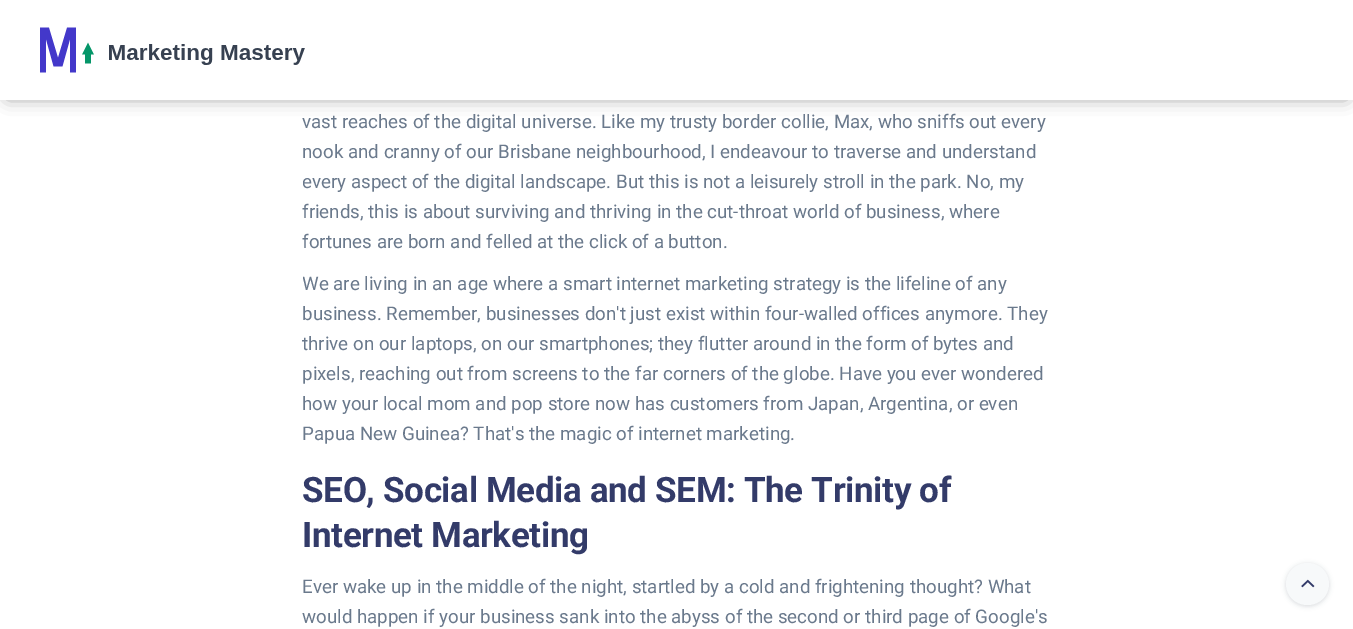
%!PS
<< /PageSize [1353 629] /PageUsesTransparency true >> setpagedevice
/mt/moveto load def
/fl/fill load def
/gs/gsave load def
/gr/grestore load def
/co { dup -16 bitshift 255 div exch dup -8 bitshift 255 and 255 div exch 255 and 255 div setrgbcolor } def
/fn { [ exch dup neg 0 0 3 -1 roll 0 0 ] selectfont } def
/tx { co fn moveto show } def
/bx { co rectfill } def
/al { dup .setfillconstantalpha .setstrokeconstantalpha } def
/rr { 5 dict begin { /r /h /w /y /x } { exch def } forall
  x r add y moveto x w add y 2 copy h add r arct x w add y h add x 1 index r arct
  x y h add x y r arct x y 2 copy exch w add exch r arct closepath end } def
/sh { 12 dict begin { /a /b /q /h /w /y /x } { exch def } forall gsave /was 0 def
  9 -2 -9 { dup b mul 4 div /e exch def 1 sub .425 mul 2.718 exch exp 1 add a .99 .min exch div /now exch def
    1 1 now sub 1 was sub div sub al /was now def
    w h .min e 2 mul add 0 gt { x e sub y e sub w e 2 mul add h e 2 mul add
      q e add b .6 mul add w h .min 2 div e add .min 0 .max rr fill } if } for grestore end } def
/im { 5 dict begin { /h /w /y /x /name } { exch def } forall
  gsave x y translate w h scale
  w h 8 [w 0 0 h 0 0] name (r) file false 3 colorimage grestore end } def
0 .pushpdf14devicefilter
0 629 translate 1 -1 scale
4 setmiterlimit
0 0 1353 629 16#FFFFFF bx
16#000000 co
8 11 1338 85 0 9 .5 sh
0 0 1353 100 16#FFFFFF bx
(media/1.raw) 40 27 265 46 im
16#9AA1AB co
1286 564 43 42 21 2.5 .4 sh
16#F7F9FA co
1286 563 43 42 21 rr fl
(media/2.raw) 1301 579 14 9 im
(vast reaches of the digital universe. Like my trusty border collie, Max, who sniffs out every) 302 128 /Roboto-Regular 18.75 16#6A798C tx
(nook and cranny of our Brisbane neighbourhood, I endeavour to traverse and understand) 302 158 /Roboto-Regular 18.75 16#6A798C tx
gs
303 0 750 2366 rectclip
(every aspect of the digital landscape. But this is not a leisurely stroll in the park. No, my) 302 188 /Roboto-Regular 18.75 16#6A798C tx
gr
(friends, this is about surviving and thriving in the cut-throat world of business, where) 302 218 /Roboto-Regular 18.75 16#6A798C tx
(fortunes are born and felled at the click of a button.) 302 248 /Roboto-Regular 18.75 16#6A798C tx
gs
303 0 750 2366 rectclip
(We are living in an age where a smart internet marketing strategy is the lifeline of any) 302 290 /Roboto-Regular 18.75 16#6A798C tx
gr
(business. Remember, businesses don't just exist within four-walled offices anymore. They) 302 320 /Roboto-Regular 18.75 16#6A798C tx
(thrive on our laptops, on our smartphones; they flutter around in the form of bytes and) 302 350 /Roboto-Regular 18.75 16#6A798C tx
(pixels, reaching out from screens to the far corners of the globe. Have you ever wondered) 302 380 /Roboto-Regular 18.75 16#6A798C tx
(how your local mom and pop store now has customers from Japan, Argentina, or even) 302 410 /Roboto-Regular 18.75 16#6A798C tx
(Papua New Guinea? That's the magic of internet marketing.) 302 440 /Roboto-Regular 18.75 16#6A798C tx
/Roboto-Bold 35 fn
16#333B69 co
302 502 mt -.35 0 (SEO, Social Media and SEM: The Trinity of) ashow
302 547 mt -.35 0 (Internet Marketing) ashow
(Ever wake up in the middle of the night, startled by a cold and frightening thought? What) 302 593 /Roboto-Regular 18.75 16#6A798C tx
(would happen if your business sank into the abyss of the second or third page of Google's) 302 623 /Roboto-Regular 18.75 16#6A798C tx
.poppdf14devicefilter showpage
